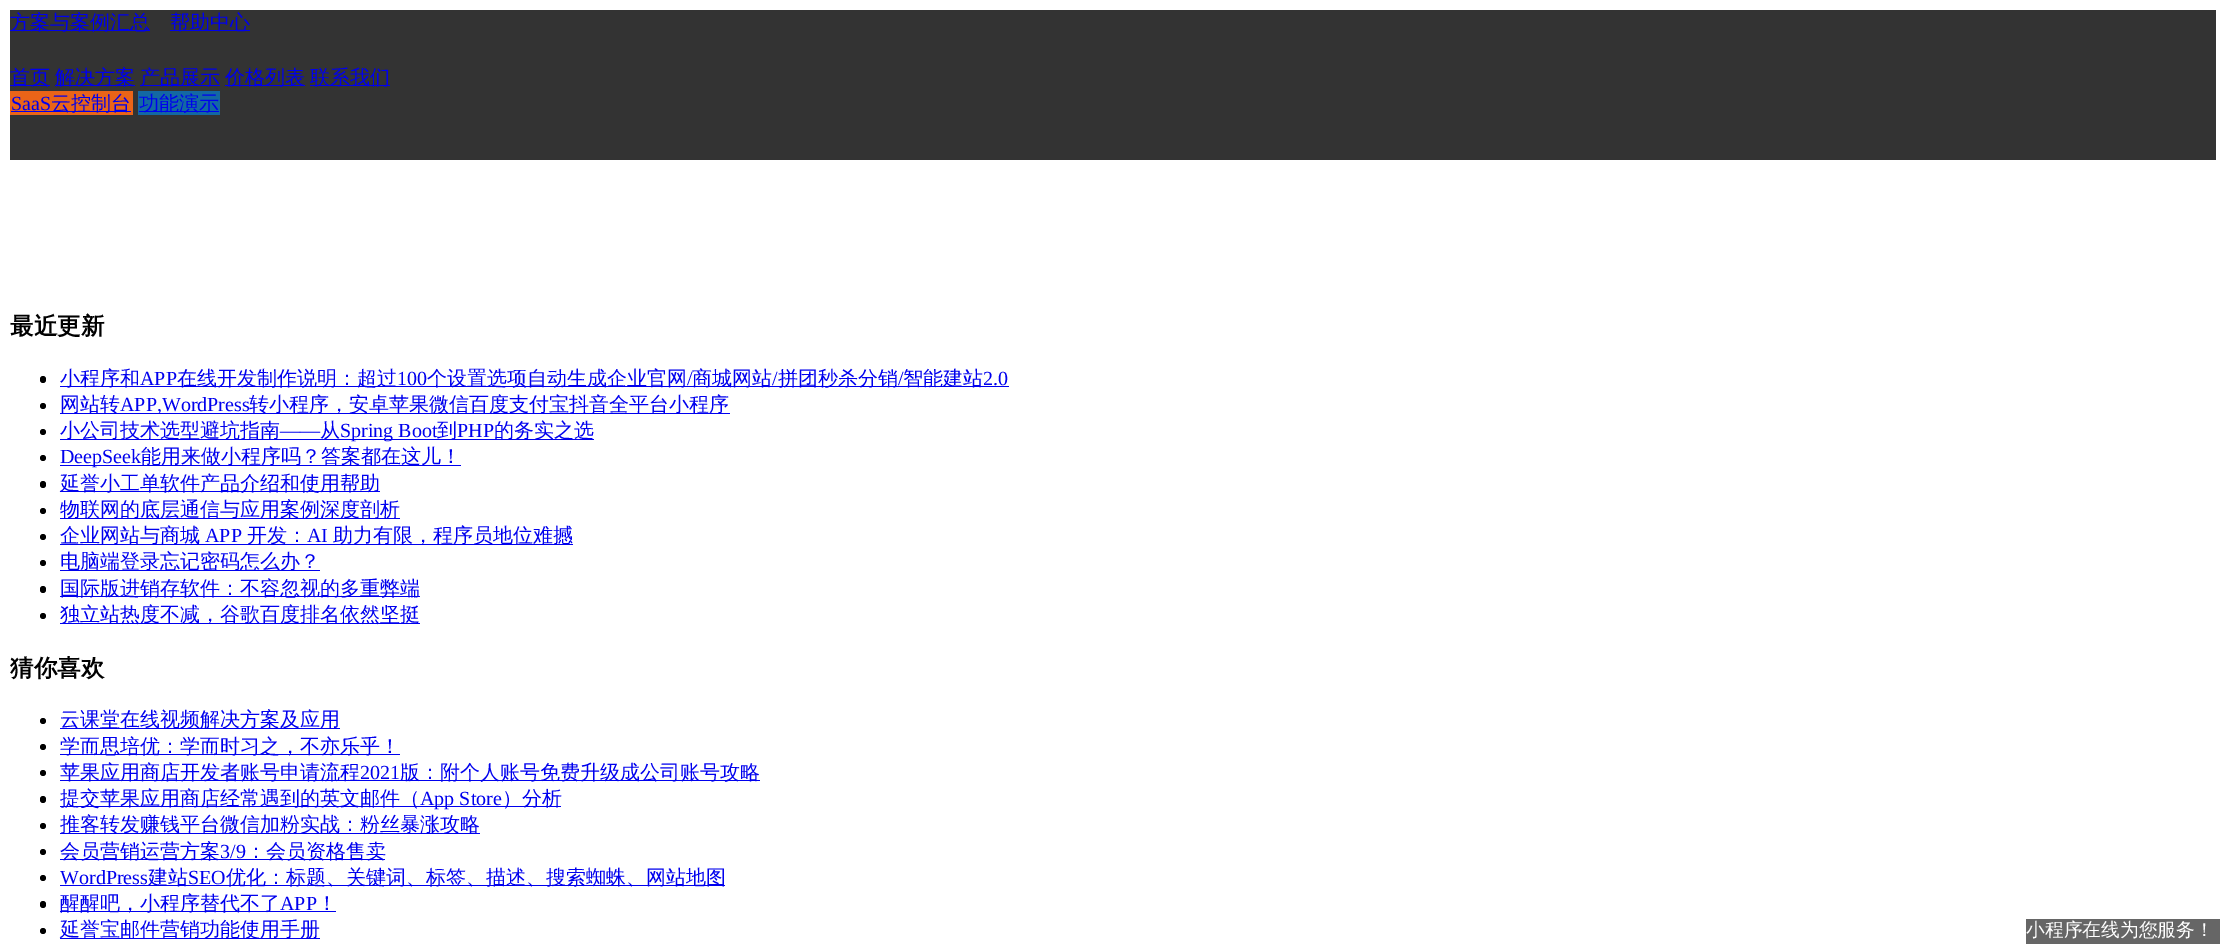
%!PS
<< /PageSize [2226 950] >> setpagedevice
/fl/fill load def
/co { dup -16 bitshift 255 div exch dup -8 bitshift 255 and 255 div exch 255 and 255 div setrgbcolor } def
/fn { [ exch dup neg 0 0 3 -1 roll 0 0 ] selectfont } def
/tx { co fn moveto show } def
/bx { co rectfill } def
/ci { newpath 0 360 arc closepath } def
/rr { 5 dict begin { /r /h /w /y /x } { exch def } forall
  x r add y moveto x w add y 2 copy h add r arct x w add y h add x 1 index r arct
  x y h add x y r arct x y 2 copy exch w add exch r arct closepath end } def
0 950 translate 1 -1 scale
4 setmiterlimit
0 0 2226 950 16#FFFFFF bx
10 10 2206 150 16#333333 bx
10 30 140 1 16#0000EE bx
170 30 80 1 16#0000EE bx
10 85 40 1 16#0000EE bx
55 85 80 1 16#0000EE bx
140 85 80 1 16#0000EE bx
225 85 80 1 16#0000EE bx
310 85 80 1 16#0000EE bx
10 91 123 24 16#EA6418 bx
11 111 120 1 16#0000EE bx
138 91 82 24 16#1368A3 bx
139 111 80 1 16#0000EE bx
16#000000 co
40 376 6 7 3 rr fl
60 386 949 1 16#0000EE bx
16#000000 co
43 406 3 ci fl
60 413 670 1 16#0000EE bx
16#000000 co
43 432 3 ci fl
60 439 534 1 16#0000EE bx
16#000000 co
43 458 3 ci fl
60 465 401 1 16#0000EE bx
16#000000 co
40 481 6 7 3 rr fl
60 491 320 1 16#0000EE bx
16#000000 co
43 511 3 ci fl
60 518 340 1 16#0000EE bx
16#000000 co
43 537 3 ci fl
60 544 513 1 16#0000EE bx
16#000000 co
43 563 3 ci fl
60 570 260 1 16#0000EE bx
16#000000 co
40 586 6 7 3 rr fl
60 596 360 1 16#0000EE bx
16#000000 co
43 616 3 ci fl
60 623 360 1 16#0000EE bx
16#000000 co
43 721 3 ci fl
60 728 280 1 16#0000EE bx
16#000000 co
43 747 3 ci fl
60 754 340 1 16#0000EE bx
16#000000 co
43 773 3 ci fl
60 780 700 1 16#0000EE bx
16#000000 co
40 796 6 7 3 rr fl
60 806 501 1 16#0000EE bx
16#000000 co
43 826 3 ci fl
60 833 420 1 16#0000EE bx
16#000000 co
43 852 3 ci fl
60 859 325 1 16#0000EE bx
16#000000 co
43 878 3 ci fl
60 885 665 1 16#0000EE bx
16#000000 co
40 901 6 7 3 rr fl
60 911 276 1 16#0000EE bx
16#000000 co
43 931 3 ci fl
60 938 260 1 16#0000EE bx
2026 919 194 25 16#666666 bx
(方案与案例汇总) 10 29 /WenQuanYiZenHei-Medium 20 16#0000EE tx
(帮助中心) 170 29 /WenQuanYiZenHei-Medium 20 16#0000EE tx
(首页) 10 84 /WenQuanYiZenHei-Medium 20 16#0000EE tx
(解决方案) 55 84 /WenQuanYiZenHei-Medium 20 16#0000EE tx
(产品展示) 140 84 /WenQuanYiZenHei-Medium 20 16#0000EE tx
(价格列表) 225 84 /WenQuanYiZenHei-Medium 20 16#0000EE tx
(联系我们) 310 84 /WenQuanYiZenHei-Medium 20 16#0000EE tx
(SaaS) 11 110 /LiberationSerif-Regular 20 16#0000EE tx
(云控制台) 51 110 /WenQuanYiZenHei-Medium 20 16#0000EE tx
(功能演示) 139 110 /WenQuanYiZenHei-Medium 20 16#0000EE tx
(最近更新) 10 334 /WenQuanYiZenHei-Bold 23.5 16#000000 tx
(小程序和) 60 385 /WenQuanYiZenHei-Medium 20 16#0000EE tx
(APP) 140 385 /LiberationSerif-Regular 20 16#0000EE tx
(在线开发制作说明：超过) 177 385 /WenQuanYiZenHei-Medium 20 16#0000EE tx
(100) 397 385 /LiberationSerif-Regular 20 16#0000EE tx
(个设置选项自动生成企业官网) 427 385 /WenQuanYiZenHei-Medium 20 16#0000EE tx
(/) 687 385 /LiberationSerif-Regular 20 16#0000EE tx
(商城网站) 692 385 /WenQuanYiZenHei-Medium 20 16#0000EE tx
(/) 772 385 /LiberationSerif-Regular 20 16#0000EE tx
(拼团秒杀分销) 778 385 /WenQuanYiZenHei-Medium 20 16#0000EE tx
(/) 898 385 /LiberationSerif-Regular 20 16#0000EE tx
(智能建站) 903 385 /WenQuanYiZenHei-Medium 20 16#0000EE tx
(2.0) 983 385 /LiberationSerif-Regular 20 16#0000EE tx
(网站转) 60 411 /WenQuanYiZenHei-Medium 20 16#0000EE tx
(APP,WordPress) 120 411 /LiberationSerif-Regular 20 16#0000EE tx
(转小程序，安卓苹果微信百度支付宝抖音全平台小程序) 249 411 /WenQuanYiZenHei-Medium 20 16#0000EE tx
(小公司技术选型避坑指南) 60 437 /WenQuanYiZenHei-Medium 20 16#0000EE tx
(——) 280 437 /LiberationSerif-Regular 20 16#0000EE tx
(从) 320 437 /WenQuanYiZenHei-Medium 20 16#0000EE tx
(Spring Boot) 340 437 /LiberationSerif-Regular 20 16#0000EE tx
(到) 437 437 /WenQuanYiZenHei-Medium 20 16#0000EE tx
(PHP) 457 437 /LiberationSerif-Regular 20 16#0000EE tx
(的务实之选) 494 437 /WenQuanYiZenHei-Medium 20 16#0000EE tx
(DeepSeek) 60 463 /LiberationSerif-Regular 20 16#0000EE tx
(能用来做小程序吗？答案都在这儿！) 141 463 /WenQuanYiZenHei-Medium 20 16#0000EE tx
(延誉小工单软件产品介绍和使用帮助) 60 490 /WenQuanYiZenHei-Medium 20 16#0000EE tx
(物联网的底层通信与应用案例深度剖析) 60 516 /WenQuanYiZenHei-Medium 20 16#0000EE tx
(企业网站与商城) 60 542 /WenQuanYiZenHei-Medium 20 16#0000EE tx
(APP) 205 542 /LiberationSerif-Regular 20 16#0000EE tx
(开发：) 247 542 /WenQuanYiZenHei-Medium 20 16#0000EE tx
(AI) 307 542 /LiberationSerif-Regular 20 16#0000EE tx
(助力有限，程序员地位难撼) 333 542 /WenQuanYiZenHei-Medium 20 16#0000EE tx
(电脑端登录忘记密码怎么办？) 60 568 /WenQuanYiZenHei-Medium 20 16#0000EE tx
(国际版进销存软件：不容忽视的多重弊端) 60 595 /WenQuanYiZenHei-Medium 20 16#0000EE tx
(独立站热度不减，谷歌百度排名依然坚挺) 60 621 /WenQuanYiZenHei-Medium 20 16#0000EE tx
(猜你喜欢) 10 676 /WenQuanYiZenHei-Bold 23.5 16#000000 tx
(云课堂在线视频解决方案及应用) 60 726 /WenQuanYiZenHei-Medium 20 16#0000EE tx
(学而思培优：学而时习之，不亦乐乎！) 60 753 /WenQuanYiZenHei-Medium 20 16#0000EE tx
(苹果应用商店开发者账号申请流程) 60 779 /WenQuanYiZenHei-Medium 20 16#0000EE tx
(2021) 360 779 /LiberationSerif-Regular 20 16#0000EE tx
(版：附个人账号免费升级成公司账号攻略) 400 779 /WenQuanYiZenHei-Medium 20 16#0000EE tx
(提交苹果应用商店经常遇到的英文邮件（) 60 805 /WenQuanYiZenHei-Medium 20 16#0000EE tx
(App Store) 420 805 /LiberationSerif-Regular 20 16#0000EE tx
(）分析) 502 805 /WenQuanYiZenHei-Medium 20 16#0000EE tx
(推客转发赚钱平台微信加粉实战：粉丝暴涨攻略) 60 831 /WenQuanYiZenHei-Medium 20 16#0000EE tx
(会员营销运营方案) 60 858 /WenQuanYiZenHei-Medium 20 16#0000EE tx
(3/9) 220 858 /LiberationSerif-Regular 20 16#0000EE tx
(：会员资格售卖) 246 858 /WenQuanYiZenHei-Medium 20 16#0000EE tx
(WordPress) 60 884 /LiberationSerif-Regular 20 16#0000EE tx
(建站) 148 884 /WenQuanYiZenHei-Medium 20 16#0000EE tx
(SEO) 188 884 /LiberationSerif-Regular 20 16#0000EE tx
(优化：标题、关键词、标签、描述、搜索蜘蛛、网站地图) 226 884 /WenQuanYiZenHei-Medium 20 16#0000EE tx
(醒醒吧，小程序替代不了) 60 910 /WenQuanYiZenHei-Medium 20 16#0000EE tx
(APP) 280 910 /LiberationSerif-Regular 20 16#0000EE tx
(！) 317 910 /WenQuanYiZenHei-Medium 20 16#0000EE tx
(延誉宝邮件营销功能使用手册) 60 936 /WenQuanYiZenHei-Medium 20 16#0000EE tx
(小程序在线为您服务！) 2026 936 /WenQuanYiZenHei-Medium 18.75 16#FFFFFF tx
showpage
